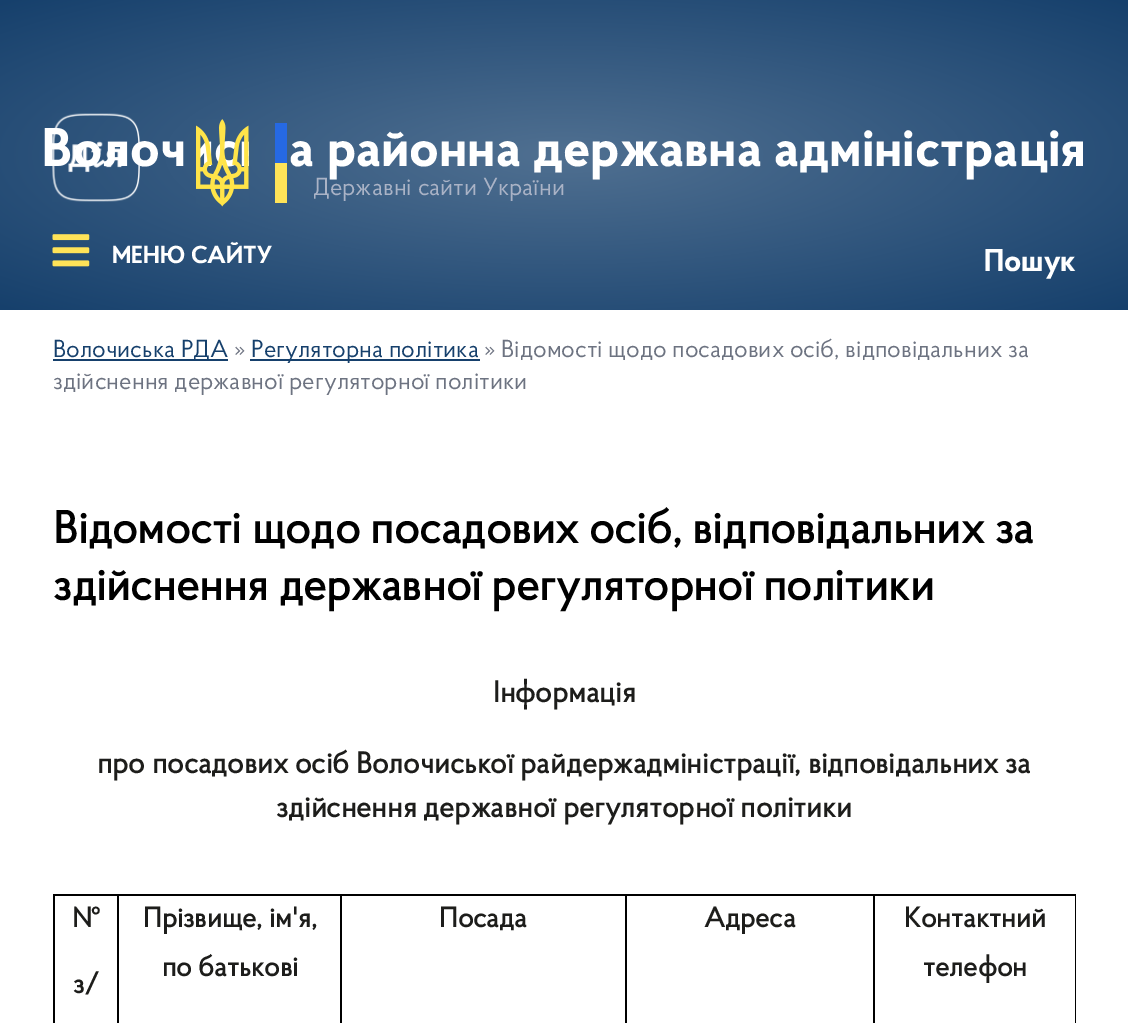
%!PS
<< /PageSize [1128 1023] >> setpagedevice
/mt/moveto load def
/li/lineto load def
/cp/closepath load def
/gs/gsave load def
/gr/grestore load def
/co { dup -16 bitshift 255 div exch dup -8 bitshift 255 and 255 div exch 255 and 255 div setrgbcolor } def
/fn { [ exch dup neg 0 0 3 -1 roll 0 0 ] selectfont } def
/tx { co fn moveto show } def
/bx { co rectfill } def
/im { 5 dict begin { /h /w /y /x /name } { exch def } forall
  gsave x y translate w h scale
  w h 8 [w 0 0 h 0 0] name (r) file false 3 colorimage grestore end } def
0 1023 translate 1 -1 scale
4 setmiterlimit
0 0 1128 1023 16#FFFFFF bx
gs 0 0 mt 1128 0 li 1128 310 li 0 310 li cp clip newpath 564 155 translate 798 219 scale
<< /ShadingType 3 /ColorSpace /DeviceRGB /Coords [0 0 0 0 0 1] /Extend [true true] /Function << /FunctionType 2 /Domain [0 1] /C0 [.314 .439 .569] /C1 [.086 .251 .424] /N 1 >> >> shfill gr
(media/2.raw) 196 119 53 88 im
275 123 12 40 16#2669E3 bx
275 163 12 40 16#FFE358 bx
(media/3.raw) 52 234 38 33 im
53 359 175 2 16#16406C bx
250 359 230 2 16#16406C bx
53 894 1023 2 16#000000 bx
1075 894 1 129 16#000000 bx
53 894 2 129 16#000000 bx
117 894 2 129 16#000000 bx
340 894 2 129 16#000000 bx
625 894 2 129 16#000000 bx
873 894 2 129 16#000000 bx
(В) 42 166 /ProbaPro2-Bold 54.25 16#FFFFFF tx
(оч) 130 166 /ProbaPro2-Bold 54.25 16#FFFFFF tx
(а районна державна адміністрація) 289 166 /ProbaPro2-Bold 54.25 16#FFFFFF tx
(media/1.raw) 52 113 88 89 im
(Державні сайти України) 313 195 /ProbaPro-Regular 24.5 16#AAB3C6 tx
(МЕНЮ САЙТУ) 112 263 /ProbaPro2-Bold 24.5 16#FFFFFF tx
(Пошук) 984 271 /ProbaPro2-Bold 31.5 16#FFFFFF tx
(Волочиська РДА) 53 357 /ProbaPro-Regular 24.5 16#16406C tx
(») 234 357 /ProbaPro-Regular 24.5 16#6D7381 tx
(Регуляторна політика) 251 357 /ProbaPro-Regular 24.5 16#16406C tx
(» Відомості щодо посадових осіб, відповідальних за) 484 357 /ProbaPro-Regular 24.5 16#6D7381 tx
(здійснення державної регуляторної політики) 53 389 /ProbaPro-Regular 24.5 16#6D7381 tx
(Відомості щодо посадових осіб, відповідальних за) 53 543 /ProbaPro-Bold 45.5 16#000000 tx
(здійснення державної регуляторної політики) 53 600 /ProbaPro-Bold 45.5 16#000000 tx
(Інформація) 493 702 /ProbaPro-Bold 29.75 16#1D1D1B tx
(про посадових осіб Волочиської райдержадміністрації, відповідальних за) 97 773 /ProbaPro-Bold 29.75 16#1D1D1B tx
(здійснення державної регуляторної політики) 276 817 /ProbaPro-Bold 29.75 16#1D1D1B tx
(№) 72 927 /ProbaPro-Bold 28 16#1D1D1B tx
(з/) 73 993 /ProbaPro-Bold 28 16#1D1D1B tx
(Прізвище, ім'я,) 143 927 /ProbaPro-Bold 28 16#1D1D1B tx
(по батькові) 162 976 /ProbaPro-Bold 28 16#1D1D1B tx
(Посада) 439 927 /ProbaPro-Bold 28 16#1D1D1B tx
(Адреса) 704 927 /ProbaPro-Bold 28 16#1D1D1B tx
(Контактний) 904 927 /ProbaPro-Bold 28 16#1D1D1B tx
(телефон) 923 976 /ProbaPro-Bold 28 16#1D1D1B tx
showpage
